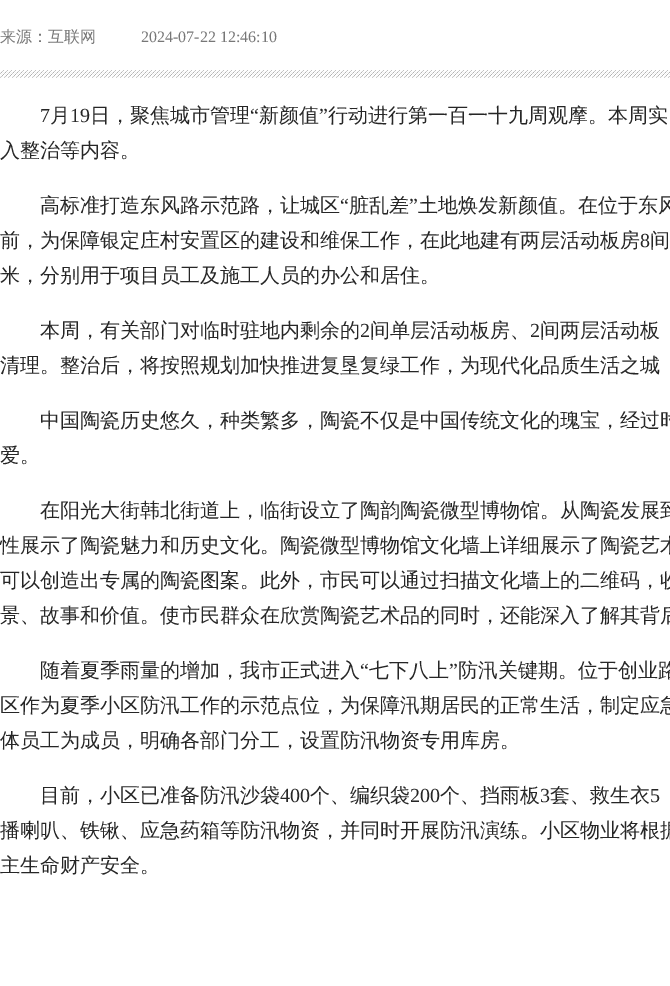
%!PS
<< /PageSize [670 986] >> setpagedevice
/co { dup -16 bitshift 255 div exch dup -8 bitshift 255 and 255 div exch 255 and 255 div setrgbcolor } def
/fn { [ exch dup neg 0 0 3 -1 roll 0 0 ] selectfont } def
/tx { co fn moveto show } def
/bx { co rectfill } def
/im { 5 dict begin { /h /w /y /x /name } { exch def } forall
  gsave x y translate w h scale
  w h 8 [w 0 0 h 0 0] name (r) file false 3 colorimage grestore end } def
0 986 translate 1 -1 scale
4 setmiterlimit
0 0 670 986 16#FFFFFF bx
(media/1.raw) 0 70 670 8 im
(来源：互联网) 0 42 /WenQuanYiZenHei-Medium 16 16#777777 tx
(2024-07-22 12:46:10) 141 42 /LiberationSerif-Regular 16 16#777777 tx
(7) 40 122 /LiberationSerif-Regular 20 16#262626 tx
(月) 50 122 /WenQuanYiZenHei-Medium 20 16#262626 tx
(19) 70 122 /LiberationSerif-Regular 20 16#262626 tx
(日，聚焦城市管理) 90 122 /WenQuanYiZenHei-Medium 20 16#262626 tx
(“) 250 122 /LiberationSerif-Regular 20 16#262626 tx
(新颜值) 259 122 /WenQuanYiZenHei-Medium 20 16#262626 tx
(”) 319 122 /LiberationSerif-Regular 20 16#262626 tx
(行动进行第一百一十九周观摩。本周实) 328 122 /WenQuanYiZenHei-Medium 20 16#262626 tx
(入整治等内容。) 0 157 /WenQuanYiZenHei-Medium 20 16#262626 tx
(高标准打造东风路示范路，让城区) 40 212 /WenQuanYiZenHei-Medium 20 16#262626 tx
(“) 340 212 /LiberationSerif-Regular 20 16#262626 tx
(脏乱差) 349 212 /WenQuanYiZenHei-Medium 20 16#262626 tx
(”) 409 212 /LiberationSerif-Regular 20 16#262626 tx
(土地焕发新颜值。在位于东风) 418 212 /WenQuanYiZenHei-Medium 20 16#262626 tx
(前，为保障银定庄村安置区的建设和维保工作，在此地建有两层活动板房) 0 247 /WenQuanYiZenHei-Medium 20 16#262626 tx
(8) 640 247 /LiberationSerif-Regular 20 16#262626 tx
(间) 650 247 /WenQuanYiZenHei-Medium 20 16#262626 tx
(米，分别用于项目员工及施工人员的办公和居住。) 0 282 /WenQuanYiZenHei-Medium 20 16#262626 tx
(本周，有关部门对临时驻地内剩余的) 40 337 /WenQuanYiZenHei-Medium 20 16#262626 tx
(2) 360 337 /LiberationSerif-Regular 20 16#262626 tx
(间单层活动板房、) 370 337 /WenQuanYiZenHei-Medium 20 16#262626 tx
(2) 530 337 /LiberationSerif-Regular 20 16#262626 tx
(间两层活动板) 540 337 /WenQuanYiZenHei-Medium 20 16#262626 tx
(清理。整治后，将按照规划加快推进复垦复绿工作，为现代化品质生活之城) 0 372 /WenQuanYiZenHei-Medium 20 16#262626 tx
(中国陶瓷历史悠久，种类繁多，陶瓷不仅是中国传统文化的瑰宝，经过时) 40 427 /WenQuanYiZenHei-Medium 20 16#262626 tx
(爱。) 0 462 /WenQuanYiZenHei-Medium 20 16#262626 tx
(在阳光大街韩北街道上，临街设立了陶韵陶瓷微型博物馆。从陶瓷发展到) 40 517 /WenQuanYiZenHei-Medium 20 16#262626 tx
(性展示了陶瓷魅力和历史文化。陶瓷微型博物馆文化墙上详细展示了陶瓷艺术) 0 552 /WenQuanYiZenHei-Medium 20 16#262626 tx
(可以创造出专属的陶瓷图案。此外，市民可以通过扫描文化墙上的二维码，收) 0 587 /WenQuanYiZenHei-Medium 20 16#262626 tx
(景、故事和价值。使市民群众在欣赏陶瓷艺术品的同时，还能深入了解其背后) 0 622 /WenQuanYiZenHei-Medium 20 16#262626 tx
(随着夏季雨量的增加，我市正式进入) 40 677 /WenQuanYiZenHei-Medium 20 16#262626 tx
(“) 360 677 /LiberationSerif-Regular 20 16#262626 tx
(七下八上) 369 677 /WenQuanYiZenHei-Medium 20 16#262626 tx
(”) 449 677 /LiberationSerif-Regular 20 16#262626 tx
(防汛关键期。位于创业路) 458 677 /WenQuanYiZenHei-Medium 20 16#262626 tx
(区作为夏季小区防汛工作的示范点位，为保障汛期居民的正常生活，制定应急) 0 712 /WenQuanYiZenHei-Medium 20 16#262626 tx
(体员工为成员，明确各部门分工，设置防汛物资专用库房。) 0 747 /WenQuanYiZenHei-Medium 20 16#262626 tx
(目前，小区已准备防汛沙袋) 40 802 /WenQuanYiZenHei-Medium 20 16#262626 tx
(400) 280 802 /LiberationSerif-Regular 20 16#262626 tx
(个、编织袋) 310 802 /WenQuanYiZenHei-Medium 20 16#262626 tx
(200) 410 802 /LiberationSerif-Regular 20 16#262626 tx
(个、挡雨板) 440 802 /WenQuanYiZenHei-Medium 20 16#262626 tx
(3) 540 802 /LiberationSerif-Regular 20 16#262626 tx
(套、救生衣) 550 802 /WenQuanYiZenHei-Medium 20 16#262626 tx
(5) 650 802 /LiberationSerif-Regular 20 16#262626 tx
(播喇叭、铁锹、应急药箱等防汛物资，并同时开展防汛演练。小区物业将根据) 0 837 /WenQuanYiZenHei-Medium 20 16#262626 tx
(主生命财产安全。) 0 872 /WenQuanYiZenHei-Medium 20 16#262626 tx
showpage
